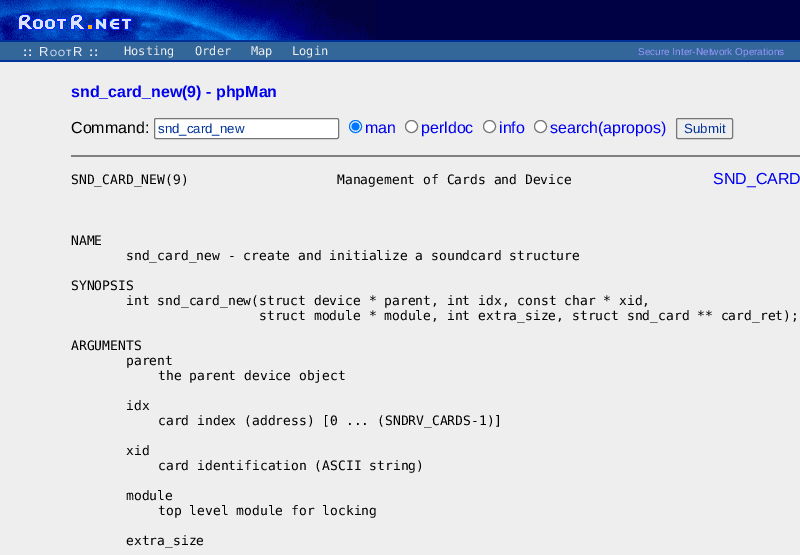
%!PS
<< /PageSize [800 555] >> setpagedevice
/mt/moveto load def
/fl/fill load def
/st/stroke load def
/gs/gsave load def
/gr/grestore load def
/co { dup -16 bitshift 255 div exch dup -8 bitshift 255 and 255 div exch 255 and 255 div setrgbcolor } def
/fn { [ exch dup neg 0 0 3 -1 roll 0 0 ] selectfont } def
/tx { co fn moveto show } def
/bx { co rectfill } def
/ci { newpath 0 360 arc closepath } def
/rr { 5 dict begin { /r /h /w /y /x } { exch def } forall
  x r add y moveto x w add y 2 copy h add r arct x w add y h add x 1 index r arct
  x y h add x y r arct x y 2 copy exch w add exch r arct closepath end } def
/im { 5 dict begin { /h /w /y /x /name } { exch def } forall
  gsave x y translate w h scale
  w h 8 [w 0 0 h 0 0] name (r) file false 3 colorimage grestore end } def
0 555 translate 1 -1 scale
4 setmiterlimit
0 0 800 555 16#EEEEEE bx
376 0 424 40 16#000044 bx
(media/1.raw) 0 0 376 40 im
0 40 800 2 16#003399 bx
0 42 800 18 16#336699 bx
0 60 800 2 16#003399 bx
16#FFFFFF co
154.5 118.5 184 20 1.5 rr gs fl gr
16#767676 co
st
16#FFFFFF co
355.5 126.5 6 ci gs fl gr
16#0075FF co
st
355.5 126.5 4 ci fl
16#FFFFFF co
411.5 126.5 6 ci gs fl gr
16#767676 co
st
16#FFFFFF co
489.5 126.5 6 ci gs fl gr
16#767676 co
st
16#FFFFFF co
540.5 126.5 6 ci gs fl gr
16#767676 co
st
676.5 118.5 56 20 1.5 rr st
71 155 729 2 16#808080 bx
/LiberationSans-Bold 13 fn
16#EEEEFF co
23 56 mt 1 0 (::) ashow
/LiberationSans-Regular 13 fn
39 56 mt 1 0 (R) ashow
/LiberationSans-Regular 9 fn
50 56 mt 1 0 (OOT) ashow
/LiberationSans-Regular 13 fn
73 56 mt 1 0 (R) ashow
/LiberationSans-Bold 13 fn
89 56 mt 1 0 (::) ashow
(Hosting) 124 55 /DejaVuSansMono-Regular 12 16#EEEEEE tx
(Order) 195 55 /DejaVuSansMono-Regular 12 16#EEEEEE tx
(Map) 251 55 /DejaVuSansMono-Regular 12 16#EEEEEE tx
(Login) 292 55 /DejaVuSansMono-Regular 12 16#EEEEEE tx
(Secure Inter-Network Operations) 638 55 /LiberationSans-Regular 10 16#9999FF tx
(snd_card_new\(9\) - phpMan) 71 97 /LiberationSans-Bold 16 16#0000EE tx
(Command:) 71 133 /LiberationSans-Regular 16 16#000000 tx
(snd_card_new) 158 133 /LiberationSans-Regular 13.25 16#003399 tx
(man) 365 133 /LiberationSans-Regular 16 16#0000EE tx
(perldoc) 421 133 /LiberationSans-Regular 16 16#0000EE tx
(info) 499 133 /LiberationSans-Regular 16 16#0000EE tx
(search\(apropos\)) 550 133 /LiberationSans-Regular 16 16#0000EE tx
(Submit) 684 133 /LiberationSans-Regular 13.25 16#003399 tx
(SND_CARD_NEW\(9\)                   Management of Cards and Device) 71 184 /DejaVuSansMono-Regular 13 16#000000 tx
(SND_CARD) 713 184 /LiberationSans-Regular 16 16#0000EE tx
(NAME) 71 245 /DejaVuSansMono-Regular 13 16#000000 tx
(snd_card_new - create and initialize a soundcard structure) 126 260 /DejaVuSansMono-Regular 13 16#000000 tx
(SYNOPSIS) 71 290 /DejaVuSansMono-Regular 13 16#000000 tx
(int snd_card_new\(struct device * parent, int idx, const char * xid,) 126 305 /DejaVuSansMono-Regular 13 16#000000 tx
(struct module * module, int extra_size, struct snd_card ** card_ret\);) 259 320 /DejaVuSansMono-Regular 13 16#000000 tx
(ARGUMENTS) 71 350 /DejaVuSansMono-Regular 13 16#000000 tx
(parent) 126 365 /DejaVuSansMono-Regular 13 16#000000 tx
(the parent device object) 158 380 /DejaVuSansMono-Regular 13 16#000000 tx
(idx) 126 410 /DejaVuSansMono-Regular 13 16#000000 tx
(card index \(address\) [0 ... \(SNDRV_CARDS-1\)]) 158 425 /DejaVuSansMono-Regular 13 16#000000 tx
(xid) 126 455 /DejaVuSansMono-Regular 13 16#000000 tx
(card identification \(ASCII string\)) 158 470 /DejaVuSansMono-Regular 13 16#000000 tx
(module) 126 500 /DejaVuSansMono-Regular 13 16#000000 tx
(top level module for locking) 158 515 /DejaVuSansMono-Regular 13 16#000000 tx
(extra_size) 126 545 /DejaVuSansMono-Regular 13 16#000000 tx
showpage
